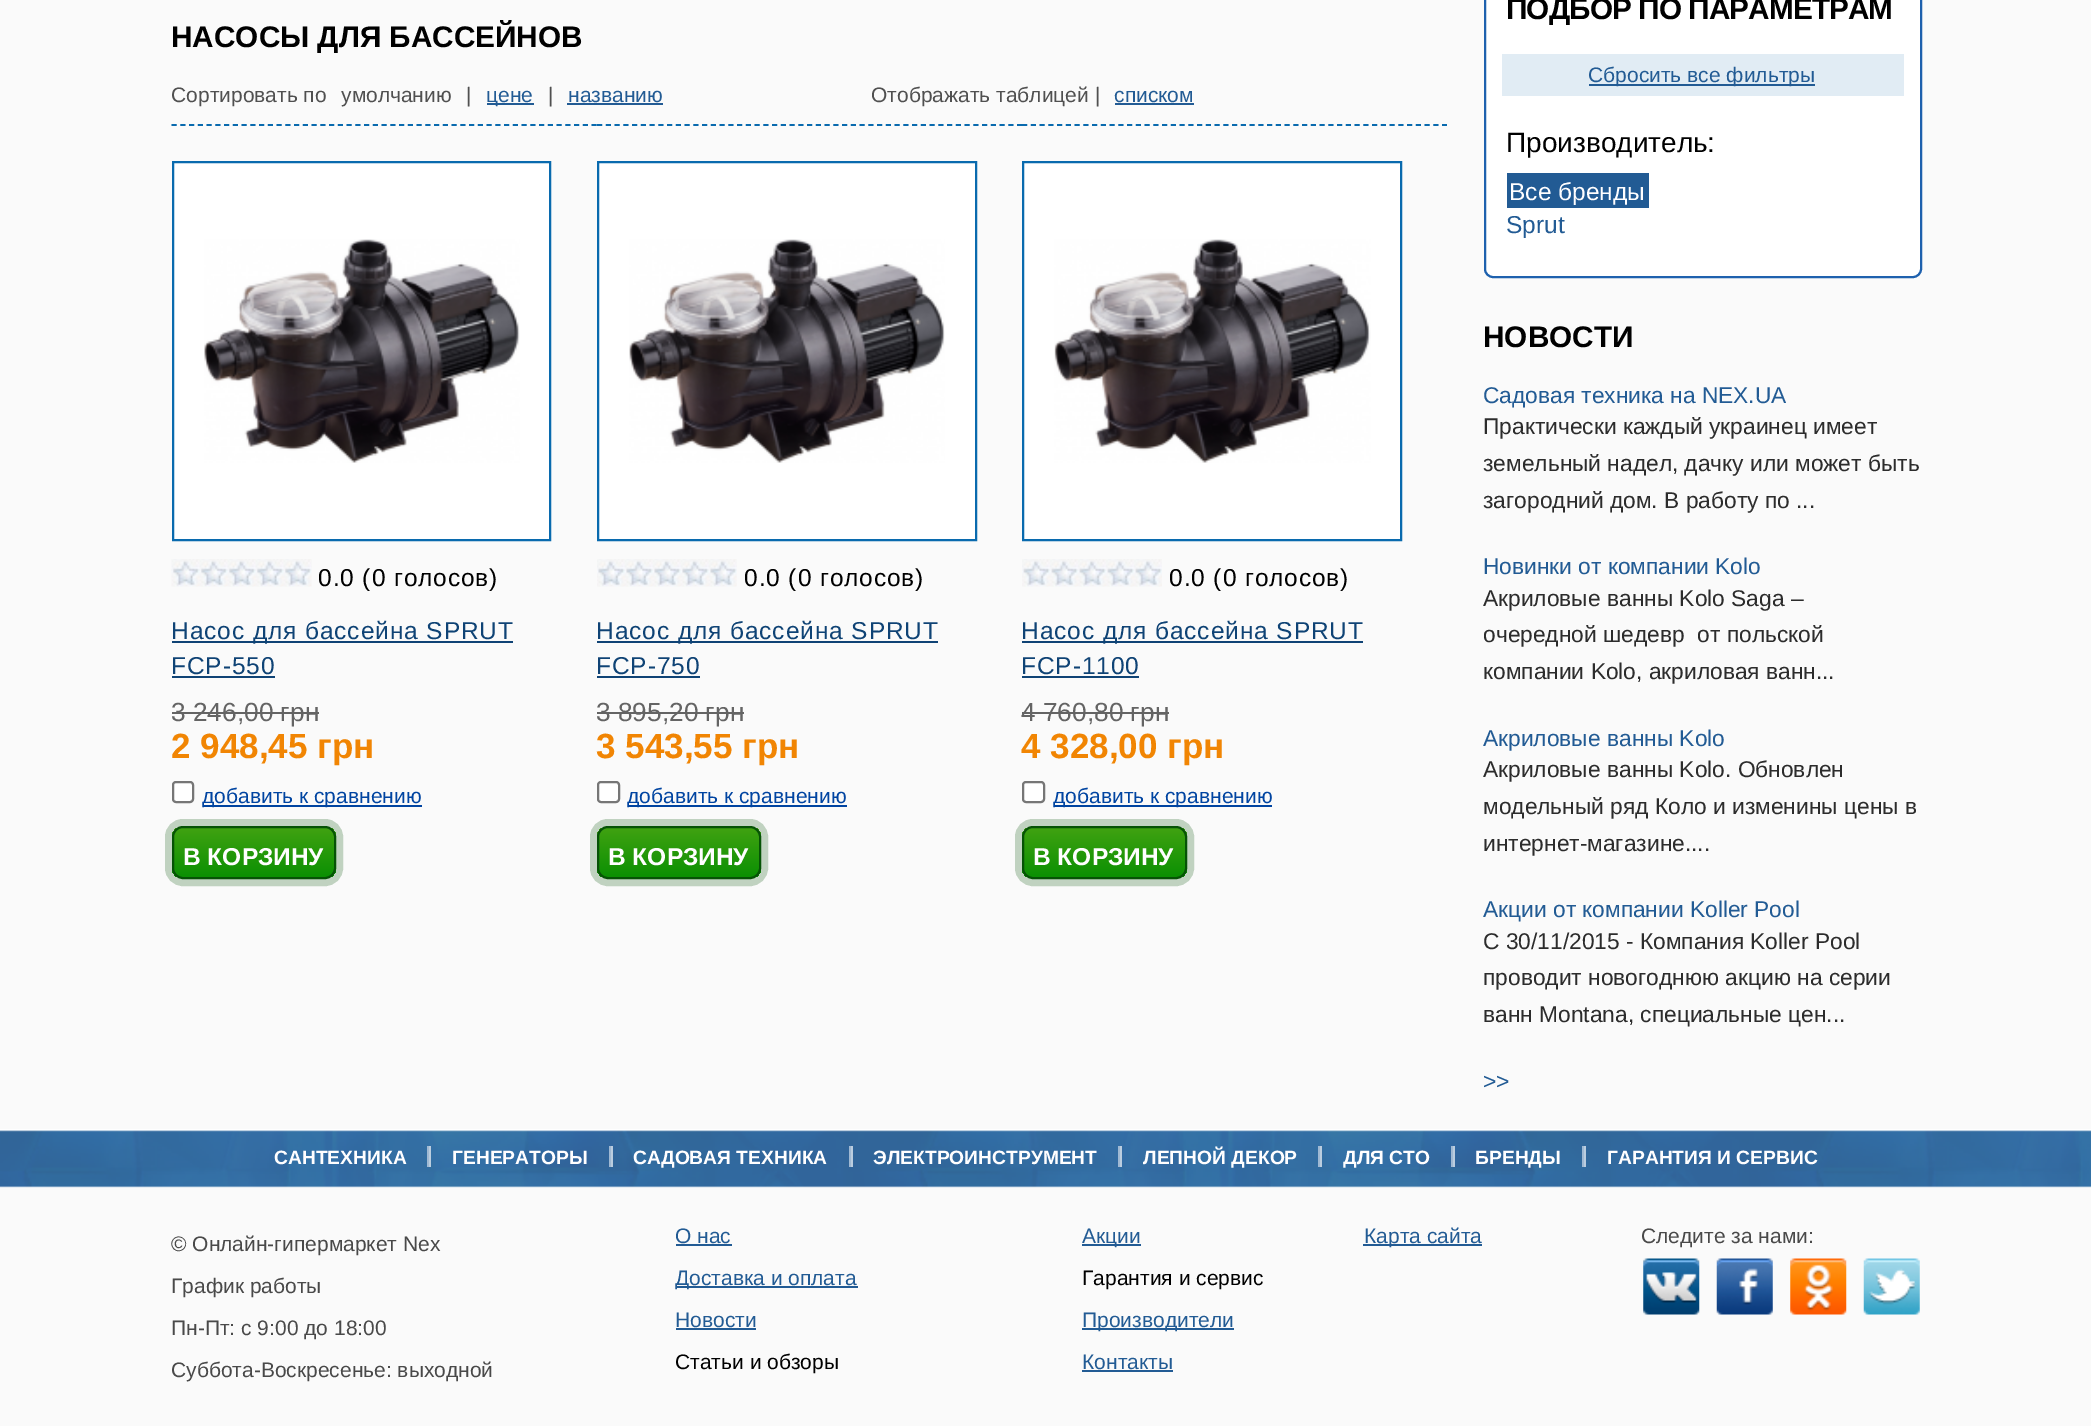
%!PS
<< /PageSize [2091 1426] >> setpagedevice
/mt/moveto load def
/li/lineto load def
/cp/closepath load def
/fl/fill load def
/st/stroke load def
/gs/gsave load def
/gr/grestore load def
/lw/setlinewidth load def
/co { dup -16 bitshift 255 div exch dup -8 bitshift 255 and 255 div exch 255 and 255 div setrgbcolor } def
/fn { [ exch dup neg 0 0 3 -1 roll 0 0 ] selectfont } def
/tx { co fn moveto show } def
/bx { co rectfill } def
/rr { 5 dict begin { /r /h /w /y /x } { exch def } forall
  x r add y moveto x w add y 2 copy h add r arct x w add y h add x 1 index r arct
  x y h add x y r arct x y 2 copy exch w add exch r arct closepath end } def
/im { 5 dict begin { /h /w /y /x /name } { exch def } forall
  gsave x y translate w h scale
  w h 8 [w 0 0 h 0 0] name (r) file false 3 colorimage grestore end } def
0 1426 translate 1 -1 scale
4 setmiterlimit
0 0 2091 1426 16#FAFAFA bx
487 103 47 2 16#225B94 bx
567 103 96 2 16#225B94 bx
1115 103 79 2 16#225B94 bx
16#096AAE co
1.8 lw
[5.25 3.5] 0 setdash
171.5 125 mt 597 125 li st
16#FFFFFF co
173 162 mt 550 162 li 550 540 li 173 540 li cp gs fl gr
16#096AAE co
2 lw
[] 0 setdash
st
(media/1.raw) 204 239 316 224 im
(media/2.raw) 171 559 141 28 im
172 641 341 2 16#0F4375 bx
172 676 103 2 16#0F4375 bx
172 712 147 2 16#646464 bx
16#FFFFFF co
173 782 20 20 3 rr gs fl gr
16#767676 co
st
203 805 219 2 16#0044A1 bx
16#C0D2C0 co
7 lw
168.5 822.5 171 60 14.5 rr st
gs
172 826 164 53 11 rr clip newpath
gs 172 828 mt 336 828 li 336 877 li 172 877 li cp clip newpath
<< /ShadingType 2 /ColorSpace /DeviceRGB /Coords [254 828 254 877] /Extend [true true] /Function << /FunctionType 2 /Domain [0 1] /C0 [.251 .635 .067] /C1 [.043 .565 .012] /N 1 >> >> shfill gr
gr
16#065306 co
2 lw
173 827 162 51 10 rr st
16#096AAE co
1.8 lw
[5.25 3.5] 0 setdash
597 125 mt 1022 125 li st
16#FFFFFF co
598 162 mt 976 162 li 976 540 li 598 540 li cp gs fl gr
16#096AAE co
2 lw
[] 0 setdash
st
(media/3.raw) 629 239 316 224 im
(media/4.raw) 597 559 140 28 im
597 641 341 2 16#0F4375 bx
597 676 103 2 16#0F4375 bx
597 712 147 2 16#646464 bx
16#FFFFFF co
598 782 21 20 3 rr gs fl gr
16#767676 co
st
628 805 219 2 16#0044A1 bx
16#C0D2C0 co
7 lw
593.5 822.5 171 60 14.5 rr st
gs
597 826 164 53 11 rr clip newpath
gs 597 828 mt 761 828 li 761 877 li 597 877 li cp clip newpath
<< /ShadingType 2 /ColorSpace /DeviceRGB /Coords [679 828 679 877] /Extend [true true] /Function << /FunctionType 2 /Domain [0 1] /C0 [.251 .635 .067] /C1 [.043 .565 .012] /N 1 >> >> shfill gr
gr
16#065306 co
2 lw
598 827 162 51 10 rr st
16#096AAE co
1.8 lw
[5.25 3.5] 0 setdash
1022 125 mt 1447 125 li st
16#FFFFFF co
1023 162 mt 1401 162 li 1401 540 li 1023 540 li cp gs fl gr
16#096AAE co
2 lw
[] 0 setdash
st
(media/5.raw) 1054 239 317 224 im
(media/6.raw) 1022 559 140 28 im
1022 641 341 2 16#0F4375 bx
1022 676 117 2 16#0F4375 bx
1022 712 147 2 16#646464 bx
16#FFFFFF co
1023 782 21 20 3 rr gs fl gr
16#767676 co
st
1054 805 218 2 16#0044A1 bx
16#C0D2C0 co
7 lw
1018.5 822.5 172 60 14.5 rr st
gs
1022 826 165 53 11 rr clip newpath
gs 1022 828 mt 1187 828 li 1187 877 li 1022 877 li cp clip newpath
<< /ShadingType 2 /ColorSpace /DeviceRGB /Coords [1104 828 1104 877] /Extend [true true] /Function << /FunctionType 2 /Domain [0 1] /C0 [.251 .635 .067] /C1 [.043 .565 .012] /N 1 >> >> shfill gr
gr
16#065306 co
2 lw
1023 827 163 51 10 rr st
16#FFFFFF co
1485 -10 436 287 8 rr gs fl gr
16#1E61AE co
st
1502 54 402 42 16#E1ECF4 bx
1589 84 226 2 16#225B94 bx
1507 173 142 35 16#225B94 bx
(media/7.raw) 0 1129 2091 59 im
427 1146 2 21 16#A0B9D3 bx
609 1146 2 21 16#A0B9D3 bx
429 1146 2 21 16#BBCDDF bx
849 1146 2 21 16#A0B9D3 bx
611 1146 2 21 16#BBCDDF bx
1118 1146 2 21 16#A0B9D3 bx
851 1146 2 21 16#BBCDDF bx
1318 1146 2 21 16#A0B9D3 bx
1120 1146 2 21 16#BBCDDF bx
1451 1146 2 21 16#A0B9D3 bx
1320 1146 2 21 16#BBCDDF bx
1582 1146 2 21 16#A0B9D3 bx
1453 1146 2 21 16#BBCDDF bx
1584 1146 2 21 16#BBCDDF bx
676 1244 56 2 16#225B94 bx
1082 1244 59 2 16#225B94 bx
676 1286 182 2 16#225B94 bx
676 1328 80 2 16#225B94 bx
1082 1328 152 2 16#225B94 bx
1082 1370 91 2 16#225B94 bx
1363 1244 119 2 16#225B94 bx
(media/8.raw) 1643 1258 57 57 im
(media/9.raw) 1716 1258 57 57 im
(media/10.raw) 1790 1258 57 57 im
(media/11.raw) 1863 1258 57 57 im
(НАСОСЫ ДЛЯ БАССЕЙНОВ) 171 47 /LiberationSans-Bold 29.75 16#000000 tx
(Сортировать по) 171 102 /LiberationSans-Regular 21 16#505050 tx
(умолчанию) 341 102 /LiberationSans-Regular 21 16#505050 tx
(|) 466 102 /LiberationSans-Regular 21 16#505050 tx
(цене) 486 102 /LiberationSans-Regular 21 16#225B94 tx
(|) 548 102 /LiberationSans-Regular 21 16#505050 tx
(названию) 568 102 /LiberationSans-Regular 21 16#225B94 tx
(Отображать таблицей |) 871 102 /LiberationSans-Regular 21 16#505050 tx
(списком) 1114 102 /LiberationSans-Regular 21 16#225B94 tx
/LiberationSans-Regular 24.5 fn
16#000000 co
318 586 mt .9 0 (0.0 \(0 голосов\)) ashow
16#0F4375 co
171 639 mt .9 0 (Насос для бассейна SPRUT) ashow
171 674 mt .9 0 (FCP-550) ashow
(3 246,00 грн) 171 721 /LiberationSans-Regular 26.25 16#646464 tx
(2 948,45 грн) 171 758 /LiberationSans-Bold 35 16#F18503 tx
(добавить к сравнению) 202 803 /LiberationSans-Regular 21 16#0044A1 tx
(В КОРЗИНУ) 183 865 /LiberationSans-Bold 24.5 16#FFFEFF tx
/LiberationSans-Regular 24.5 fn
16#000000 co
744 586 mt .9 0 (0.0 \(0 голосов\)) ashow
16#0F4375 co
596 639 mt .9 0 (Насос для бассейна SPRUT) ashow
596 674 mt .9 0 (FCP-750) ashow
(3 895,20 грн) 596 721 /LiberationSans-Regular 26.25 16#646464 tx
(3 543,55 грн) 596 758 /LiberationSans-Bold 35 16#F18503 tx
(добавить к сравнению) 627 803 /LiberationSans-Regular 21 16#0044A1 tx
(В КОРЗИНУ) 608 865 /LiberationSans-Bold 24.5 16#FFFEFF tx
/LiberationSans-Regular 24.5 fn
16#000000 co
1169 586 mt .9 0 (0.0 \(0 голосов\)) ashow
16#0F4375 co
1021 639 mt .9 0 (Насос для бассейна SPRUT) ashow
1021 674 mt .9 0 (FCP-1100) ashow
(4 760,80 грн) 1021 721 /LiberationSans-Regular 26.25 16#646464 tx
(4 328,00 грн) 1021 758 /LiberationSans-Bold 35 16#F18503 tx
(добавить к сравнению) 1053 803 /LiberationSans-Regular 21 16#0044A1 tx
(В КОРЗИНУ) 1033 865 /LiberationSans-Bold 24.5 16#FFFEFF tx
/LiberationSans-Bold 29.75 fn
16#000000 co
1506 19 mt -.9 0 (ПОДБОР ПО ПАРАМЕТРАМ) ashow
(Сбросить все фильтры) 1588 82 /LiberationSans-Regular 21 16#225B94 tx
(Производитель:) 1506 152 /LiberationSans-Regular 28 16#000000 tx
(Все бренды) 1509 200 /LiberationSans-Regular 24.5 16#FFFEFF tx
(Sprut) 1506 233 /LiberationSans-Regular 24.5 16#225B94 tx
(НОВОСТИ) 1483 347 /LiberationSans-Bold 29.75 16#000000 tx
(Садовая техника на NEX.UA) 1483 403 /LiberationSans-Regular 22.75 16#225B94 tx
(Практически каждый украинец имеет) 1483 434 /LiberationSans-Regular 22.75 16#2C2C2C tx
(земельный надел, дачку или может быть) 1483 471 /LiberationSans-Regular 22.75 16#2C2C2C tx
(загородний дом. В работу по ...) 1483 508 /LiberationSans-Regular 22.75 16#2C2C2C tx
(Новинки от компании Kolo) 1483 574 /LiberationSans-Regular 22.75 16#225B94 tx
(Акриловые ванны Kolo Saga –) 1483 606 /LiberationSans-Regular 22.75 16#2C2C2C tx
(очередной шедевр  от польской) 1483 642 /LiberationSans-Regular 22.75 16#2C2C2C tx
(компании Kolo, акриловая ванн...) 1483 679 /LiberationSans-Regular 22.75 16#2C2C2C tx
(Акриловые ванны Kolo) 1483 746 /LiberationSans-Regular 22.75 16#225B94 tx
(Акриловые ванны Kolo. Обновлен) 1483 777 /LiberationSans-Regular 22.75 16#2C2C2C tx
(модельный ряд Коло и изменины цены в) 1483 814 /LiberationSans-Regular 22.75 16#2C2C2C tx
(интернет-магазине....) 1483 851 /LiberationSans-Regular 22.75 16#2C2C2C tx
(Акции от компании Koller Pool) 1483 917 /LiberationSans-Regular 22.75 16#225B94 tx
(С 30/11/2015 - Компания Koller Pool) 1483 949 /LiberationSans-Regular 22.75 16#2C2C2C tx
(проводит новогоднюю акцию на серии) 1483 985 /LiberationSans-Regular 22.75 16#2C2C2C tx
(ванн Montana, специальные цен...) 1483 1022 /LiberationSans-Regular 22.75 16#2C2C2C tx
(>>) 1483 1089 /LiberationSans-Regular 22.75 16#225B94 tx
(САНТЕХНИКА) 274 1164 /LiberationSans-Bold 19.25 16#FFFEFF tx
(ГЕНЕРАТОРЫ) 452 1164 /LiberationSans-Bold 19.25 16#FFFEFF tx
(САДОВАЯ ТЕХНИКА) 633 1164 /LiberationSans-Bold 19.25 16#FFFEFF tx
(ЭЛЕКТРОИНСТРУМЕНТ) 873 1164 /LiberationSans-Bold 19.25 16#FFFEFF tx
(ЛЕПНОЙ ДЕКОР) 1143 1164 /LiberationSans-Bold 19.25 16#FFFEFF tx
(ДЛЯ СТО) 1343 1164 /LiberationSans-Bold 19.25 16#FFFEFF tx
(БРЕНДЫ) 1475 1164 /LiberationSans-Bold 19.25 16#FFFEFF tx
(ГАРАНТИЯ И СЕРВИС) 1607 1164 /LiberationSans-Bold 19.25 16#FFFEFF tx
(© Онлайн-гипермаркет Nex) 171 1251 /LiberationSans-Regular 21 16#494949 tx
(График работы) 171 1293 /LiberationSans-Regular 21 16#494949 tx
(Пн-Пт: с 9:00 до 18:00) 171 1335 /LiberationSans-Regular 21 16#494949 tx
(Суббота-Воскресенье: выходной) 171 1377 /LiberationSans-Regular 21 16#494949 tx
(О нас) 675 1243 /LiberationSans-Regular 21 16#225B94 tx
(Акции) 1082 1243 /LiberationSans-Regular 21 16#225B94 tx
(Доставка и оплата) 675 1285 /LiberationSans-Regular 21 16#225B94 tx
(Гарантия и сервис) 1082 1285 /LiberationSans-Regular 21 16#000000 tx
(Новости) 675 1327 /LiberationSans-Regular 21 16#225B94 tx
(Производители) 1082 1327 /LiberationSans-Regular 21 16#225B94 tx
(Статьи и обзоры) 675 1369 /LiberationSans-Regular 21 16#000000 tx
(Контакты) 1082 1369 /LiberationSans-Regular 21 16#225B94 tx
(Карта сайта) 1364 1243 /LiberationSans-Regular 21 16#225B94 tx
(Следите за нами:) 1641 1243 /LiberationSans-Regular 21 16#494949 tx
showpage
